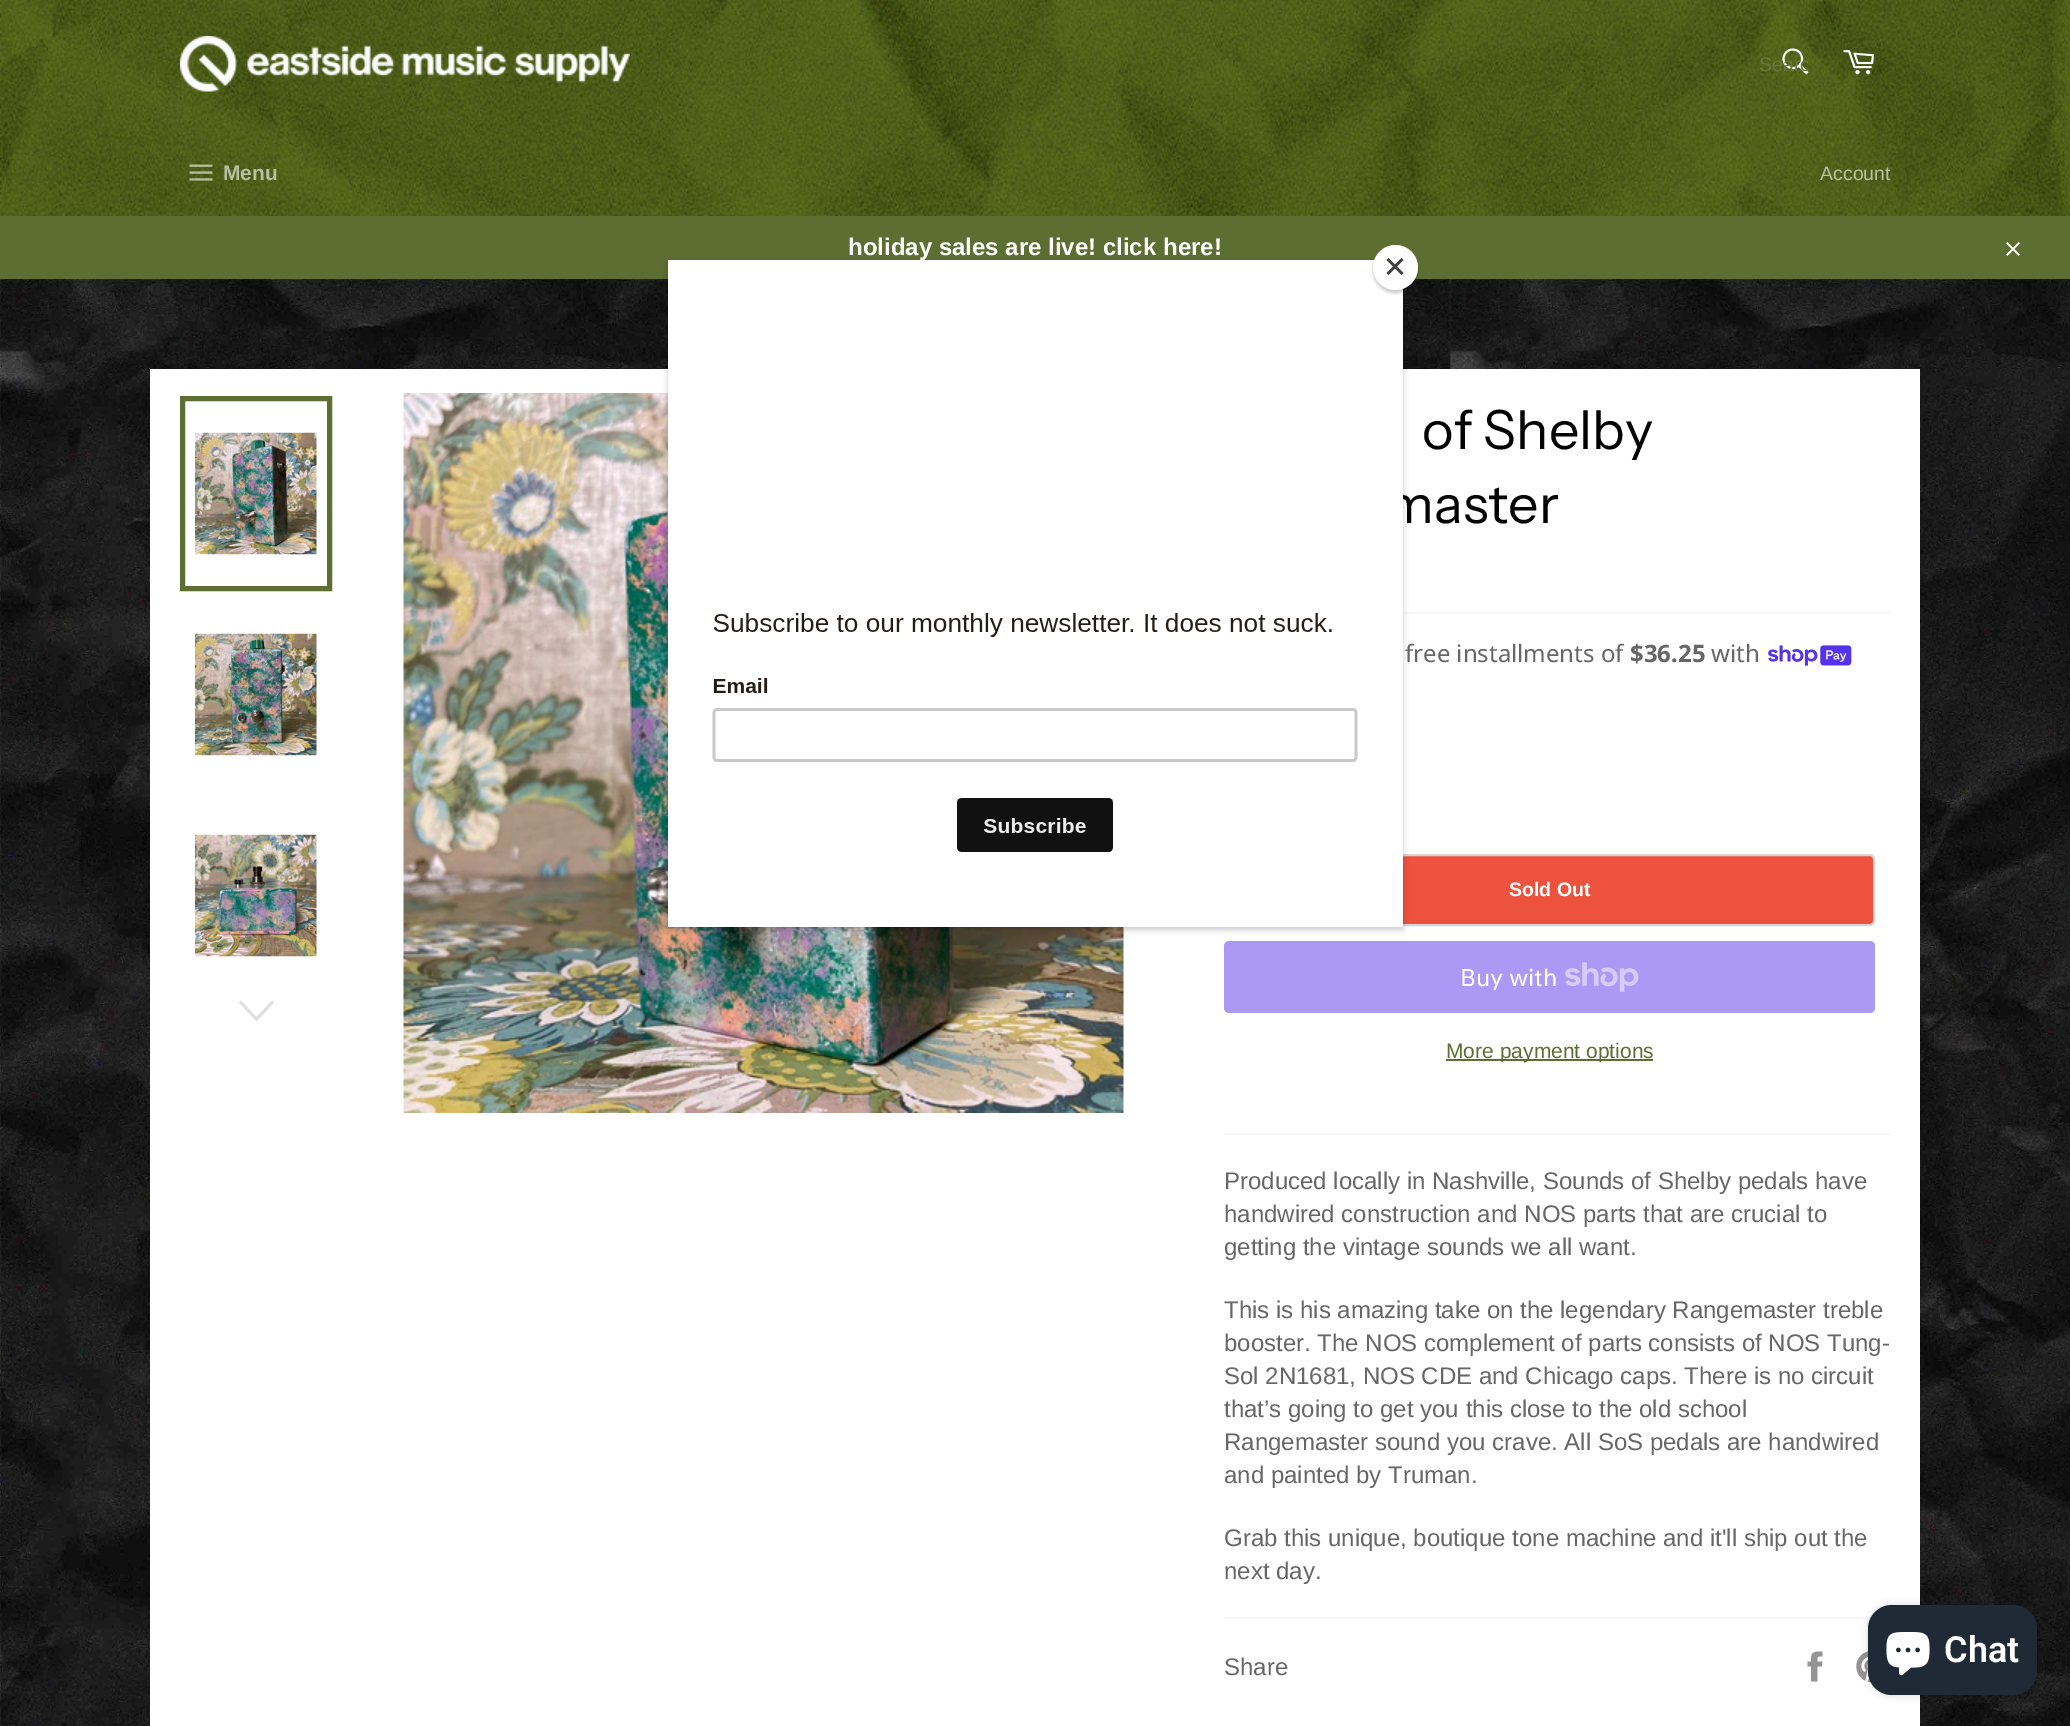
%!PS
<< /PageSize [2070 1726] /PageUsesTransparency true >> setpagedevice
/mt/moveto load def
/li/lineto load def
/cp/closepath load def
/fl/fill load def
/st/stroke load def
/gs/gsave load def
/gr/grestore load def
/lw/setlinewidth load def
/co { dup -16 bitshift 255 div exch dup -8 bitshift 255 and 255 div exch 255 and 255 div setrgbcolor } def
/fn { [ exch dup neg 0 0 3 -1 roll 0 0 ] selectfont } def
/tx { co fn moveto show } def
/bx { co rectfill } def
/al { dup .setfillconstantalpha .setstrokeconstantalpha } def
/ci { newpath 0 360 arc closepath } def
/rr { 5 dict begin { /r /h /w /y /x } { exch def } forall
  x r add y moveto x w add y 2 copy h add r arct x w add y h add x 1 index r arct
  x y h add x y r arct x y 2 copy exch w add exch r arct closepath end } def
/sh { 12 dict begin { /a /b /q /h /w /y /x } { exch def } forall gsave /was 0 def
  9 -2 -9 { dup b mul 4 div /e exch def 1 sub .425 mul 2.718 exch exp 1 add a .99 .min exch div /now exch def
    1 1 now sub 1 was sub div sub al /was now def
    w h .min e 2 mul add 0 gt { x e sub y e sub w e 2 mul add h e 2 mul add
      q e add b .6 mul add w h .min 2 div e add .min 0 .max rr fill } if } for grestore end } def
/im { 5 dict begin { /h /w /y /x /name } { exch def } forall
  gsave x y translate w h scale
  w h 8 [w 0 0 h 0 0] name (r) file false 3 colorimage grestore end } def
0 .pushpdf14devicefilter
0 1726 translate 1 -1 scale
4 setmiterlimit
0 0 2070 1726 16#FFFFFF bx
(media/1.raw) 0 0 2070 216 im
(media/2.raw) 180 36 450 56 im
(media/3.raw) 1782 48 27 27 im
(media/4.raw) 1843 50 31 25 im
(media/5.raw) 189 164 24 17 im
0 216 2070 63 16#5C6E31 bx
(media/6.raw) 2006 242 14 14 im
(media/8.raw) 0 279 2070 1447 im
150 369 1770 1357 16#FFFFFF bx
(media/12.raw) 403 393 721 720 im
1403 612 487 2 16#F7F7F7 bx
16#EC523E co
1225 855 649 70 4 rr gs fl gr
16#D5D5D5 co
2 lw
st
16#000000 co
668 263 735 667 0 3 .2 sh
(media/9.raw) 195 432 122 123 im
16#5C6E31 co
5 lw
182.5 398.5 147 190 rectstroke
(media/10.raw) 195 633 122 123 im
(media/11.raw) 195 834 122 123 im
16#E0E0E0 co
272 1000.5 mt 274 1002.5 li 256.5 1021.5 li 239 1002.5 li 241 1000.5 li 256.5 1017 li cp fl
(media/13.raw) 1768 645 84 21 im
16#AA99F5 co
1224 941 651 72 5 rr fl
(media/14.raw) 1565 962 74 30 im
1446 1059 207 2 16#5C6E31 bx
1224 1133 666 2 16#F7F7F7 bx
1224 1617 648 2 16#F7F7F7 bx
(media/15.raw) 1807 1651 16 31 im
(media/16.raw) 1856 1651 16 32 im
16#000000 co
1868 1605 169 90 24 4 .15 sh
16#202A36 co
1868 1605 169 90 24 rr fl
(media/17.raw) 1886 1632 44 44 im
gs
1760 53 48 22 rectclip
(Searc) 1759 71 /LiberationSans-Regular 19.5 16#697738 tx
gr
(Menu) 223 180 /LiberationSans-Bold 21 16#B8BFA3 tx
(Account) 1820 180 /LiberationSans-Regular 19.5 16#B8BFA3 tx
(holiday sales are live! click here!) 848 255 /LiberationSans-Bold 24 16#FFFFFF tx
(of Shelby) 1422 449 /InstrumentSans-Regular 54 16#030303 tx
(master) 1384 523 /InstrumentSans-Regular 54 16#030303 tx
(media/7.raw) 668 260 735 667 im
16#000000 co
1373 248 45 45 22.5 1.5 .2 sh
16#FFFFFF co
1395.5 267.5 22.5 ci fl
16#414141 co
1401.5 258 mt 1403.5 260 li 1388.5 275 li 1386.5 273 li cp fl
1386.5 260 mt 1388.5 258 li 1403.5 273 li 1401.5 275 li cp fl
(free installments of) 1405 662 /NotoSans-Regular 24 16#666666 tx
($36.25) 1630 662 /NotoSans-Bold 24 16#666666 tx
(with) 1711 662 /NotoSans-Regular 24 16#666666 tx
(Sold Out) 1509 896 /LiberationSans-Bold 19.5 16#FFFFFF tx
(Buy with) 1460 986 /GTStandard-Regular 24 16#FFFFFF tx
(More payment options) 1446 1058 /LiberationSans-Regular 21 16#5C6E31 tx
(Produced locally in Nashville, Sounds of Shelby pedals have) 1224 1189 /LiberationSans-Regular 24 16#666666 tx
(handwired construction and NOS parts that are crucial to) 1224 1222 /LiberationSans-Regular 24 16#666666 tx
(getting the vintage sounds we all want.) 1224 1255 /LiberationSans-Regular 24 16#666666 tx
(This is his amazing take on the legendary Rangemaster treble) 1224 1318 /LiberationSans-Regular 24 16#666666 tx
(booster. The NOS complement of parts consists of NOS Tung-) 1224 1351 /LiberationSans-Regular 24 16#666666 tx
(Sol 2N1681, NOS CDE and Chicago caps. There is no circuit) 1224 1384 /LiberationSans-Regular 24 16#666666 tx
(that’s going to get you this close to the old school) 1224 1417 /LiberationSans-Regular 24 16#666666 tx
(Rangemaster sound you crave. All SoS pedals are handwired) 1224 1450 /LiberationSans-Regular 24 16#666666 tx
(and painted by Truman.) 1224 1483 /LiberationSans-Regular 24 16#666666 tx
(Grab this unique, boutique tone machine and it'll ship out the) 1224 1546 /LiberationSans-Regular 24 16#666666 tx
(next day.) 1224 1579 /LiberationSans-Regular 24 16#666666 tx
(Share) 1224 1675 /LiberationSans-Regular 24 16#666666 tx
(Chat) 1944 1662 /Roboto-SemiBold 36 16#FFFFFF tx
.poppdf14devicefilter showpage
